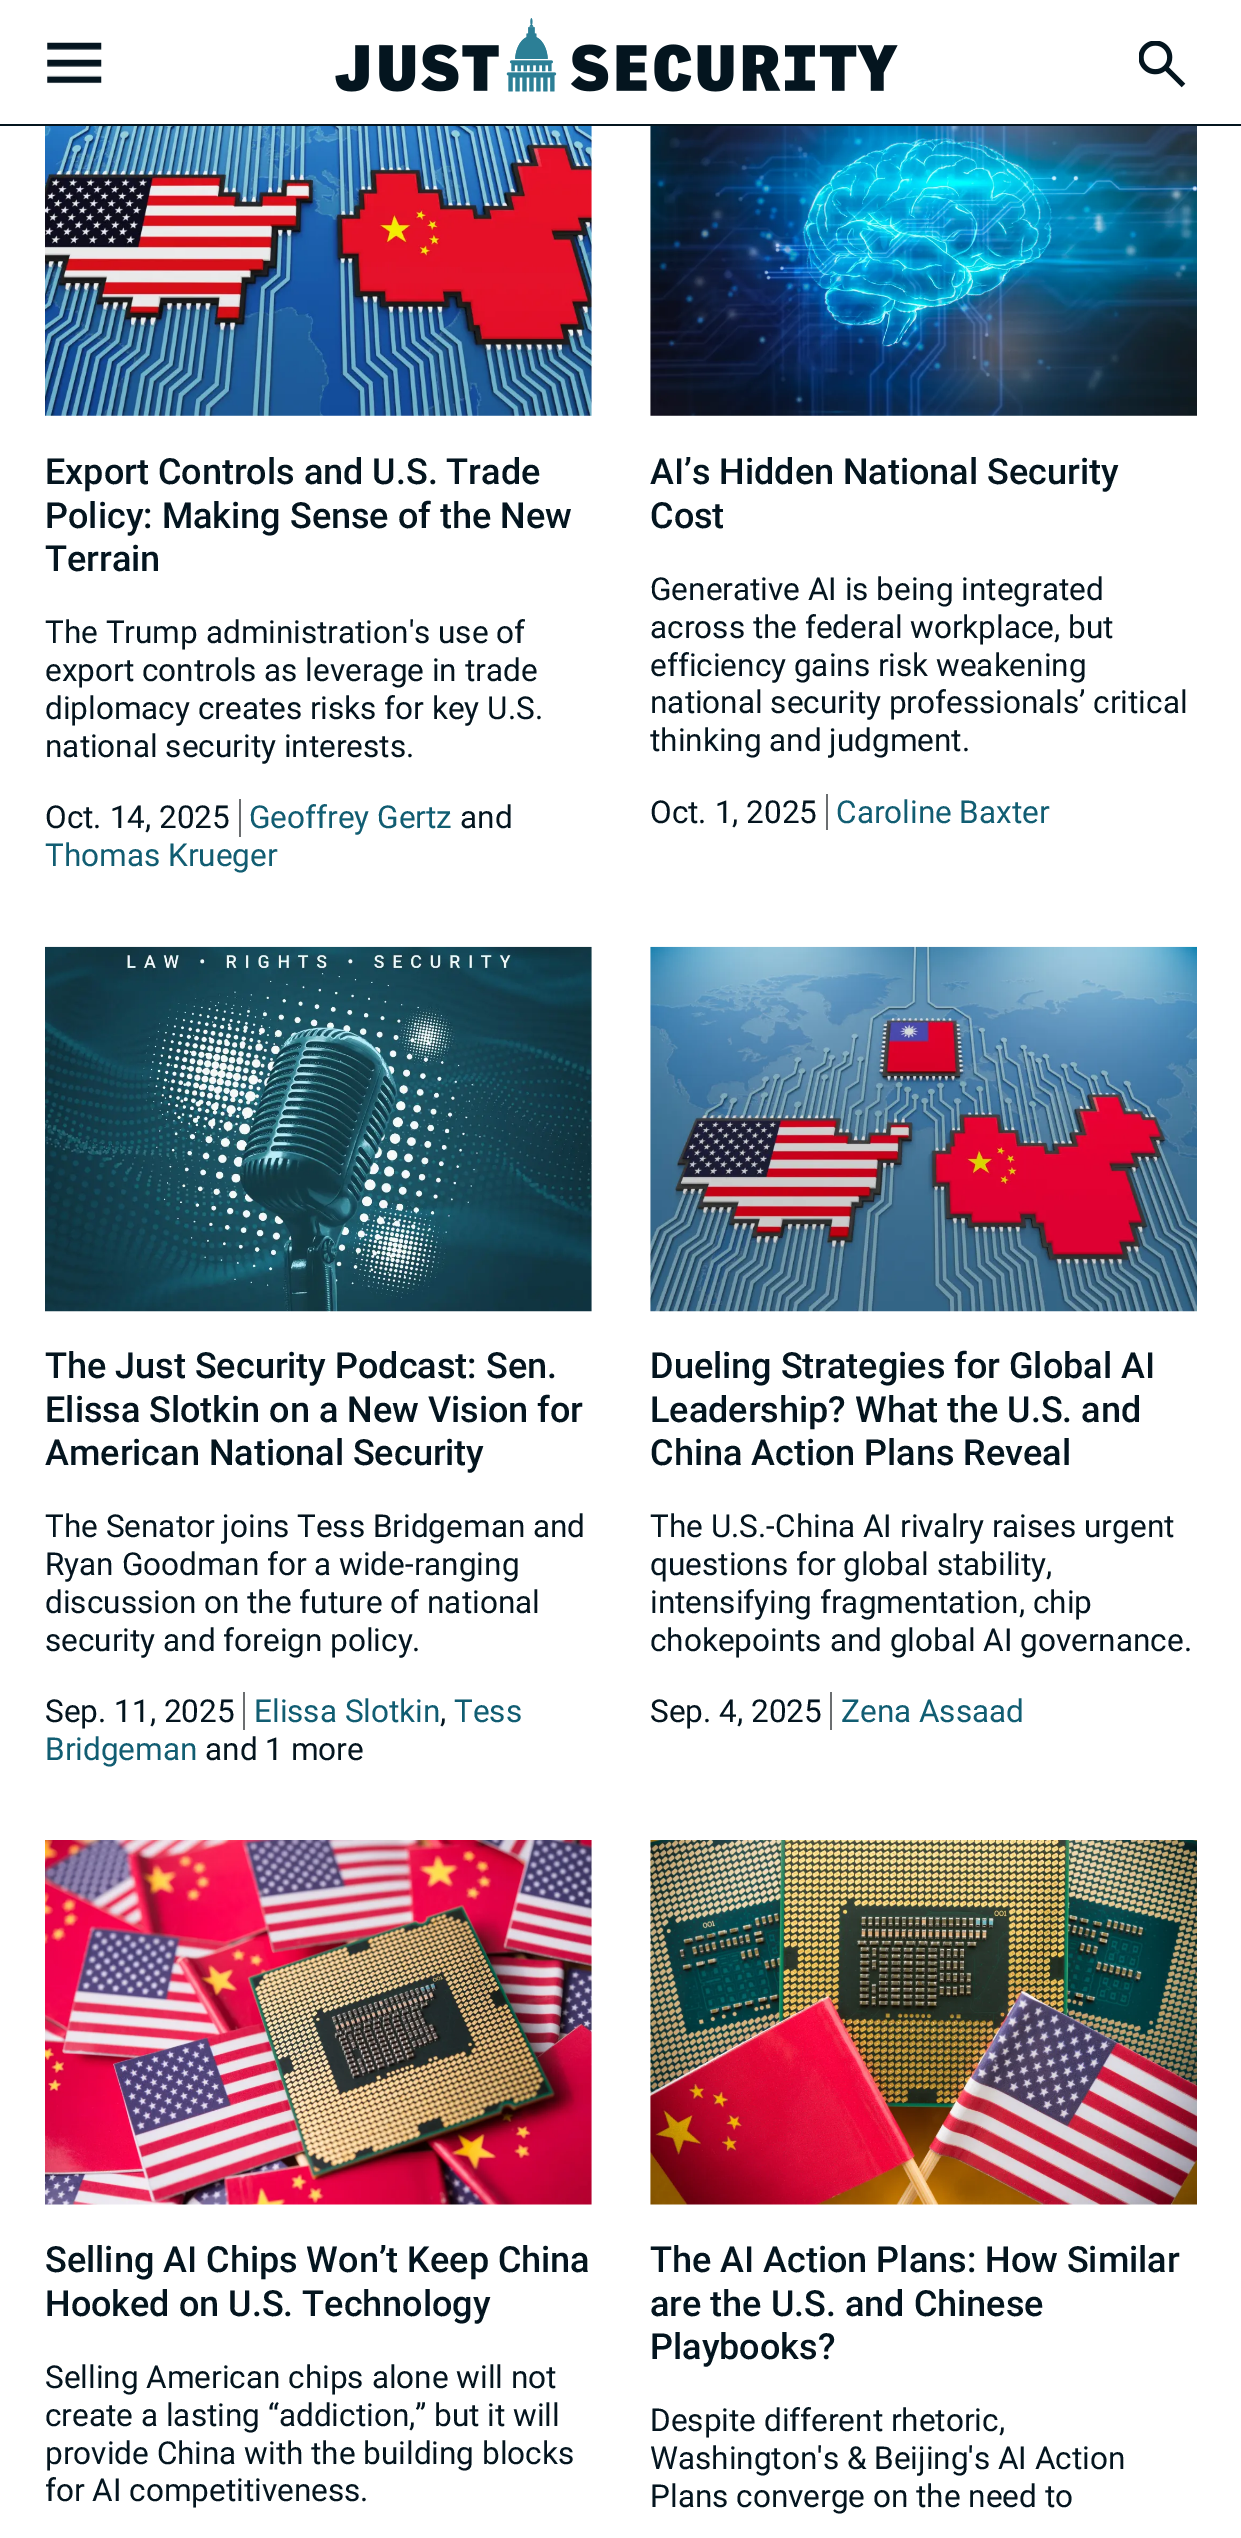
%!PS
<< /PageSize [1241 2538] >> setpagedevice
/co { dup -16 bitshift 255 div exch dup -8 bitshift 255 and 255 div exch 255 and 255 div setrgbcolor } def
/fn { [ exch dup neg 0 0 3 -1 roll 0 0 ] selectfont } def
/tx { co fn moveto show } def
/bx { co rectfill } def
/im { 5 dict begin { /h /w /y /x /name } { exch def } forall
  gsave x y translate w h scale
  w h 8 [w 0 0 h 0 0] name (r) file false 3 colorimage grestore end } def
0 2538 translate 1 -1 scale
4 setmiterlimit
0 0 1241 2538 16#FFFFFF bx
0 124 1241 2 16#04151F bx
(media/1.raw) 47 42 55 42 im
(media/2.raw) 335 18 563 74 im
(media/3.raw) 1139 41 47 47 im
(media/4.raw) 45 126 547 290 im
239 799 2 38 16#6B6E70 bx
(media/5.raw) 650 126 547 290 im
826 794 2 36 16#6B6E70 bx
(media/6.raw) 45 946 547 366 im
243 1692 2 38 16#6B6E70 bx
(media/7.raw) 650 946 547 366 im
830 1692 2 38 16#6B6E70 bx
(media/8.raw) 45 1840 547 365 im
(media/9.raw) 650 1840 547 365 im
(Export Controls and U.S. Trade) 45 484 /Roboto-Medium 36 16#04151F tx
(Policy: Making Sense of the New) 45 528 /Roboto-Medium 36 16#04151F tx
(Terrain) 45 571 /Roboto-Medium 36 16#04151F tx
(The Trump administration's use of) 45 643 /Roboto-Regular 31.5 16#04151F tx
(export controls as leverage in trade) 45 681 /Roboto-Regular 31.5 16#04151F tx
(diplomacy creates risks for key U.S.) 45 719 /Roboto-Regular 31.5 16#04151F tx
(national security interests.) 45 757 /Roboto-Regular 31.5 16#04151F tx
(Oct. 14, 2025) 45 828 /Roboto-Regular 31.5 16#04151F tx
(Geoffrey Gertz) 249 828 /Roboto-Regular 31.5 16#115D72 tx
(and) 460 828 /Roboto-Regular 31.5 16#04151F tx
(Thomas Krueger) 45 866 /Roboto-Regular 31.5 16#115D72 tx
(AI’s Hidden National Security) 650 484 /Roboto-Medium 36 16#04151F tx
(Cost) 650 528 /Roboto-Medium 36 16#04151F tx
(Generative AI is being integrated) 650 600 /Roboto-Regular 31.5 16#04151F tx
(across the federal workplace, but) 650 638 /Roboto-Regular 31.5 16#04151F tx
(efficiency gains risk weakening) 650 676 /Roboto-Regular 31.5 16#04151F tx
(national security professionals’ critical) 650 713 /Roboto-Regular 31.5 16#04151F tx
(thinking and judgment.) 650 751 /Roboto-Regular 31.5 16#04151F tx
(Oct. 1, 2025) 650 823 /Roboto-Regular 31.5 16#04151F tx
(Caroline Baxter) 836 823 /Roboto-Regular 31.5 16#115D72 tx
(The Just Security Podcast: Sen.) 45 1378 /Roboto-Medium 36 16#04151F tx
(Elissa Slotkin on a New Vision for) 45 1422 /Roboto-Medium 36 16#04151F tx
(American National Security) 45 1465 /Roboto-Medium 36 16#04151F tx
(The Senator joins Tess Bridgeman and) 45 1537 /Roboto-Regular 31.5 16#04151F tx
(Ryan Goodman for a wide-ranging) 45 1575 /Roboto-Regular 31.5 16#04151F tx
(discussion on the future of national) 45 1613 /Roboto-Regular 31.5 16#04151F tx
(security and foreign policy.) 45 1651 /Roboto-Regular 31.5 16#04151F tx
(Sep. 11, 2025) 45 1722 /Roboto-Regular 31.5 16#04151F tx
(Elissa Slotkin) 254 1722 /Roboto-Regular 31.5 16#115D72 tx
(,) 440 1722 /Roboto-Regular 31.5 16#04151F tx
(Tess) 454 1722 /Roboto-Regular 31.5 16#115D72 tx
(Bridgeman) 45 1760 /Roboto-Regular 31.5 16#115D72 tx
(and 1 more) 205 1760 /Roboto-Regular 31.5 16#04151F tx
(Dueling Strategies for Global AI) 650 1378 /Roboto-Medium 36 16#04151F tx
(Leadership? What the U.S. and) 650 1422 /Roboto-Medium 36 16#04151F tx
(China Action Plans Reveal) 650 1465 /Roboto-Medium 36 16#04151F tx
(The U.S.-China AI rivalry raises urgent) 650 1537 /Roboto-Regular 31.5 16#04151F tx
(questions for global stability,) 650 1575 /Roboto-Regular 31.5 16#04151F tx
(intensifying fragmentation, chip) 650 1613 /Roboto-Regular 31.5 16#04151F tx
(chokepoints and global AI governance.) 650 1651 /Roboto-Regular 31.5 16#04151F tx
(Sep. 4, 2025) 650 1722 /Roboto-Regular 31.5 16#04151F tx
(Zena Assaad) 841 1722 /Roboto-Regular 31.5 16#115D72 tx
(Selling AI Chips Won’t Keep China) 45 2272 /Roboto-Medium 36 16#04151F tx
(Hooked on U.S. Technology) 45 2316 /Roboto-Medium 36 16#04151F tx
(Selling American chips alone will not) 45 2388 /Roboto-Regular 31.5 16#04151F tx
(create a lasting “addiction,” but it will) 45 2426 /Roboto-Regular 31.5 16#04151F tx
(provide China with the building blocks) 45 2464 /Roboto-Regular 31.5 16#04151F tx
(for AI competitiveness.) 45 2501 /Roboto-Regular 31.5 16#04151F tx
(The AI Action Plans: How Similar) 650 2272 /Roboto-Medium 36 16#04151F tx
(are the U.S. and Chinese) 650 2316 /Roboto-Medium 36 16#04151F tx
(Playbooks?) 650 2359 /Roboto-Medium 36 16#04151F tx
(Despite different rhetoric,) 650 2431 /Roboto-Regular 31.5 16#04151F tx
(Washington's & Beijing's AI Action) 650 2469 /Roboto-Regular 31.5 16#04151F tx
(Plans converge on the need to) 650 2507 /Roboto-Regular 31.5 16#04151F tx
showpage
